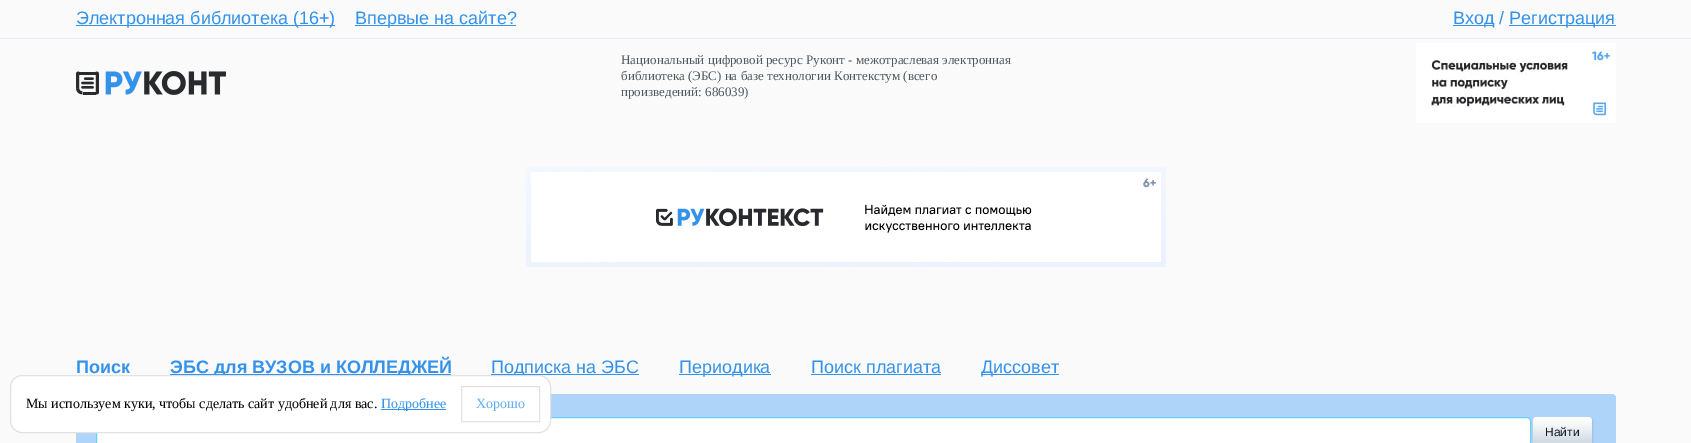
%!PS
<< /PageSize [1691 443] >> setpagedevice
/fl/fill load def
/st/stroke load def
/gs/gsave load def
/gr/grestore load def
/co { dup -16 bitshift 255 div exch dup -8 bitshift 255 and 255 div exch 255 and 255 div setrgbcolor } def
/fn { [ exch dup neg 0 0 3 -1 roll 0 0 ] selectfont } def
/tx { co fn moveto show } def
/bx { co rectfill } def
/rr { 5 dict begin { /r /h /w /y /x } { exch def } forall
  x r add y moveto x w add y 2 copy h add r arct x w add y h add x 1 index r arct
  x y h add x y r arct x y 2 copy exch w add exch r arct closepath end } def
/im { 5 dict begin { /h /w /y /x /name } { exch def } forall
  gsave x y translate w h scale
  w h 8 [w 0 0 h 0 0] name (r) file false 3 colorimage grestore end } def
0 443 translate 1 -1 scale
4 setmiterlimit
0 0 1691 443 16#FAFAFA bx
76 25 259 1 16#3392EA bx
355 25 161 1 16#3392EA bx
1453 25 41 1 16#3392EA bx
1509 25 107 1 16#3392EA bx
0 38 1691 1 16#E9F0F5 bx
(media/1.raw) 76 71 150 24 im
(media/2.raw) 1416 43 200 80 im
(media/3.raw) 526 167 640 100 im
170 374 281 1 16#3392EA bx
491 374 148 1 16#3392EA bx
679 374 92 1 16#3392EA bx
811 374 130 1 16#3392EA bx
981 374 78 1 16#3392EA bx
16#AFD4F9 co
76 394 1540 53 4 rr fl
16#FFFFFF co
96.5 417.5 1434 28 3.5 rr gs fl gr
16#6DCFF6 co
st
(media/4.raw) 1533 417 7 26 im
(media/5.raw) 1587 417 7 26 im
(media/6.raw) 1540 417 47 26 im
(Электронная библиотека \(16+\)) 76 24 /LiberationSans-Regular 18 16#3392EA tx
(Впервые на сайте?) 355 24 /LiberationSans-Regular 18 16#3392EA tx
(Вход) 1453 24 /LiberationSans-Regular 18 16#3392EA tx
(/) 1499 24 /LiberationSans-Regular 18 16#3692D8 tx
(Регистрация) 1509 24 /LiberationSans-Regular 18 16#3392EA tx
(Национальный цифровой ресурс Руконт - межотраслевая электронная) 621 64 /LiberationSerif-Regular 13 16#4F595F tx
(библиотека \(ЭБС\) на базе технологии Контекстум \(всего) 621 80 /LiberationSerif-Regular 13 16#4F595F tx
(произведений: 686039\)) 621 96 /LiberationSerif-Regular 13 16#4F595F tx
(Поиск) 76 373 /LiberationSans-Bold 18 16#3392EA tx
(ЭБС для ВУЗОВ и КОЛЛЕДЖЕЙ) 170 373 /LiberationSans-Bold 18 16#3392EA tx
(Подписка на ЭБС) 491 373 /LiberationSans-Regular 18 16#3392EA tx
(Периодика) 679 373 /LiberationSans-Regular 18 16#3392EA tx
(Поиск плагиата) 811 373 /LiberationSans-Regular 18 16#3392EA tx
(Диссовет) 981 373 /LiberationSans-Regular 18 16#3392EA tx
(Найти) 1545 436 /LiberationSans-Regular 12 16#0E1D29 tx
16#FFFFFF co
10.5 375.5 540 57 11.5 rr gs fl gr
16#E1E1E1 co
st
(Мы используем куки, чтобы сделать сайт удобней для вас.) 26 408 /LiberationSerif-Regular 14 16#000000 tx
381 409 65 1 16#3392EA bx
(Подробнее) 381 408 /LiberationSerif-Regular 14 16#3392EA tx
16#E1E1E1 co
461.5 386.5 78 35 rectstroke
(Хорошо) 476 408 /LiberationSerif-Regular 14 16#5FAEF7 tx
showpage
